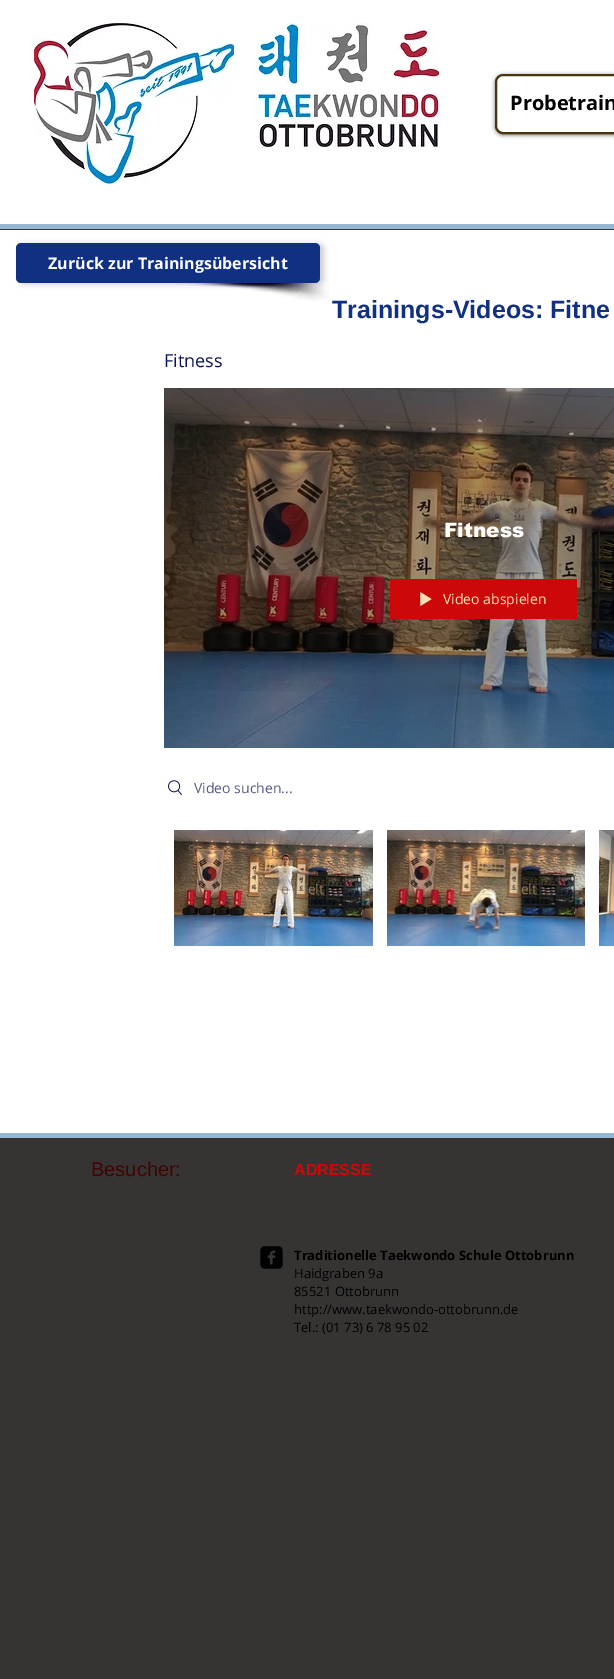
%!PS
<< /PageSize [614 1679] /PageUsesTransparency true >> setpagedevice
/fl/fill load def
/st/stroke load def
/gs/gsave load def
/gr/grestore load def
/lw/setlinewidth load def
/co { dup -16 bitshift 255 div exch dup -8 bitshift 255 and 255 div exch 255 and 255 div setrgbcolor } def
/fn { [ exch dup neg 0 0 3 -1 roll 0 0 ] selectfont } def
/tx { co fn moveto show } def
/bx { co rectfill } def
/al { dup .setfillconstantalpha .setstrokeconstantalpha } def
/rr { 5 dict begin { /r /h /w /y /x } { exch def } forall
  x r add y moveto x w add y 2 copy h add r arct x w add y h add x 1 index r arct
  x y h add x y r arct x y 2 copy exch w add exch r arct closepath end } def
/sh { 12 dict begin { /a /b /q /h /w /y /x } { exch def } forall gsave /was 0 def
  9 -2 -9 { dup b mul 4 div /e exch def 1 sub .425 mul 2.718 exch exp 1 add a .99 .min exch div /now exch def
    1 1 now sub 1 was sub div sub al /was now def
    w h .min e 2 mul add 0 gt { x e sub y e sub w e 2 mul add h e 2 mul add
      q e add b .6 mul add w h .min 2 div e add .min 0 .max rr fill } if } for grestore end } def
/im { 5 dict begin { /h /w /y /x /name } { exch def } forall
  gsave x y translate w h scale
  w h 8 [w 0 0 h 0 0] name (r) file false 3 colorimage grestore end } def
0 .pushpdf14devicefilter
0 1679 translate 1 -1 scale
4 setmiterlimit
0 0 614 1679 16#363333 bx
0 0 614 224 16#FFFFFF bx
(media/1.raw) 34 23 200 162 im
(media/2.raw) 258 23 182 124 im
16#000000 co
495 75 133 60 8 2 .6 sh
16#FFFFFF co
496 75 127 58 7 rr gs fl gr
16#493508 co
2 lw
st
0 224 614 5 16#96B7D4 bx
0 230 614 903 16#FFFFFF bx
(media/3.raw) 175 283 154 18 im
16#000000 co
20 244 304 40 5 3 .2 sh
16#103082 co
16 243 304 40 5 rr fl
(media/4.raw) 164 388 450 360 im
390 579 187 40 16#CC0808 bx
(media/5.raw) 420 592 12 14 im
(media/6.raw) 168 780 14 16 im
(media/7.raw) 174 830 199 116 im
(media/8.raw) 181 830 192 98 im
(media/9.raw) 387 830 198 116 im
(media/10.raw) 599 830 15 116 im
(media/11.raw) 599 837 13 77 im
0 1133 614 5 16#96B7D4 bx
(media/12.raw) 260 1246 23 23 im
(Probetrain) 510 110 /OpenSans-Bold 20 16#000000 tx
(Zurück zur Trainingsübersicht) 48 269 /OpenSans-Bold 16 16#FFFFFF tx
(Trainings-Videos: Fitne) 332 318 /LiberationSans-Bold 25 16#103082 tx
(Fitness) 164 367 /OpenSans-Regular 18 16#0D1559 tx
(Fitness) 444 537 /arial-Black 20 16#FFFFFF tx
(Video abspielen) 443 604 /OpenSans-Regular 14 16#F3E0B3 tx
(Video suchen...) 194 793 /OpenSans-Regular 14 16#565B8B tx
(S) 188 855 /OpenSans-Regular 14 16#796049 tx
(i) 271 855 /OpenSans-Regular 14 16#796049 tx
(e) 281 894 /OpenSans-Regular 14 16#8F7861 tx
(ielt) 304 894 /OpenSans-Regular 14 16#8F7861 tx
(it B) 484 855 /OpenSans-Regular 14 16#796049 tx
(ielt) 517 894 /OpenSans-Regular 14 16#8F745B tx
(Besucher:) 91 1176 /LiberationSans-Regular 20 16#440202 tx
(ADRESSE) 294 1175 /LiberationSans-Bold 16 16#CC0808 tx
(Traditionelle Taekwondo Schule Ottobrunn) 294 1260 /OpenSans-Bold 13 16#000000 tx
(Haidgraben 9a) 294 1278 /OpenSans-Regular 13 16#000000 tx
(85521 Ottobrunn) 294 1296 /OpenSans-Regular 13 16#000000 tx
(http://www.taekwondo-ottobrunn.de) 294 1314 /OpenSans-Regular 13 16#000000 tx
(Tel.: \(01 73\) 6 78 95 02) 294 1332 /OpenSans-Regular 13 16#000000 tx
.poppdf14devicefilter showpage
